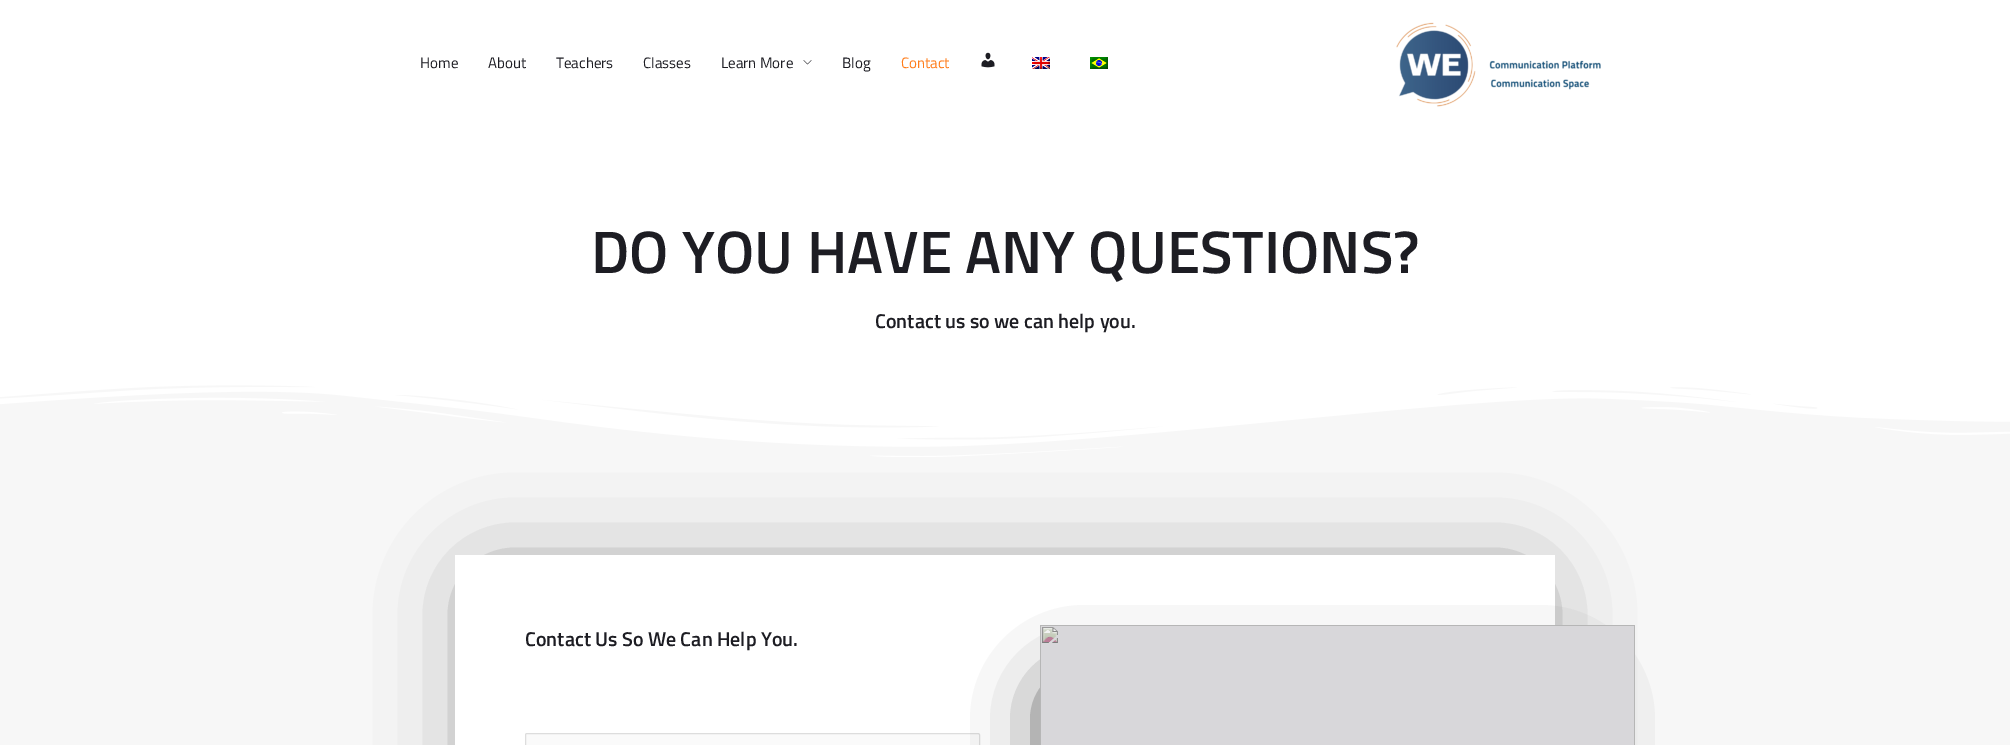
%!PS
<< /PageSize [2010 745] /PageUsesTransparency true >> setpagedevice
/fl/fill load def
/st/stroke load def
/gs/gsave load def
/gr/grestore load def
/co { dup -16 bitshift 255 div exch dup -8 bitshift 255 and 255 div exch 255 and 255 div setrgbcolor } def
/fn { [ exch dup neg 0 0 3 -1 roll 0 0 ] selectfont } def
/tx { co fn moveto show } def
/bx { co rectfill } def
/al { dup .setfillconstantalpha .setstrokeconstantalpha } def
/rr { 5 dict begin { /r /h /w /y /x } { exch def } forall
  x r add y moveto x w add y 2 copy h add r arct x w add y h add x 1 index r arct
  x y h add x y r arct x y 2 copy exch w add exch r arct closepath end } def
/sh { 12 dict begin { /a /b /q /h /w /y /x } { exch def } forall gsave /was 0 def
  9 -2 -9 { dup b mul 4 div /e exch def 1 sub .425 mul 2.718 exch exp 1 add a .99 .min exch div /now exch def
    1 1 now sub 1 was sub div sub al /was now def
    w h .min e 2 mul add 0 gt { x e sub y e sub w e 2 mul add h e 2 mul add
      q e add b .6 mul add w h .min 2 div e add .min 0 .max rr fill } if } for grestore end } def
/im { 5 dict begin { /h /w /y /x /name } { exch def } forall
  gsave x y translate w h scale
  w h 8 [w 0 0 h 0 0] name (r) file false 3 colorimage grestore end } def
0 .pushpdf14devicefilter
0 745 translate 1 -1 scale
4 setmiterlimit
0 0 2010 745 16#FFFFFF bx
(media/1.raw) 803 60 9 5 im
(media/2.raw) 981 52 14 16 im
(media/3.raw) 1032 57 18 12 im
(media/4.raw) 1090 57 18 12 im
(media/5.raw) 1396 22 205 85 im
0 385 2010 360 16#F7F7F7 bx
(media/6.raw) 0 375 2010 82 im
16#000000 co
485 585 1040 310 0 50 .5 sh
455 555 1100 190 16#FFFFFF bx
16#FAFAFA co
525.5 733.5 454 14 1.5 rr gs fl gr
16#DDDDDD co
st
16#000000 co
1060 695 505 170 0 40 1 sh
(media/7.raw) 1040 625 595 120 im
(Home) 420 68 /TitilliumWeb-Regular 15 16#1D1D23 tx
(About) 488 68 /TitilliumWeb-Regular 15 16#1D1D23 tx
(Teachers) 556 68 /TitilliumWeb-Regular 15 16#1D1D23 tx
(Classes) 643 68 /TitilliumWeb-Regular 15 16#1D1D23 tx
(Learn More) 721 68 /TitilliumWeb-Regular 15 16#1D1D23 tx
(Blog) 842 68 /TitilliumWeb-Regular 15 16#1D1D23 tx
(Contact) 901 68 /TitilliumWeb-Regular 15 16#FF7C1A tx
(DO YOU HAVE ANY QUESTIONS?) 591 273 /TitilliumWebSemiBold-SemiBold 60 16#1D1D23 tx
(Contact us so we can help you.) 875 328 /TitilliumWebSemiBold-SemiBold 20 16#1D1D23 tx
(Contact Us So We Can Help You.) 525 646 /TitilliumWebSemiBold-SemiBold 20 16#1D1D23 tx
.poppdf14devicefilter showpage
